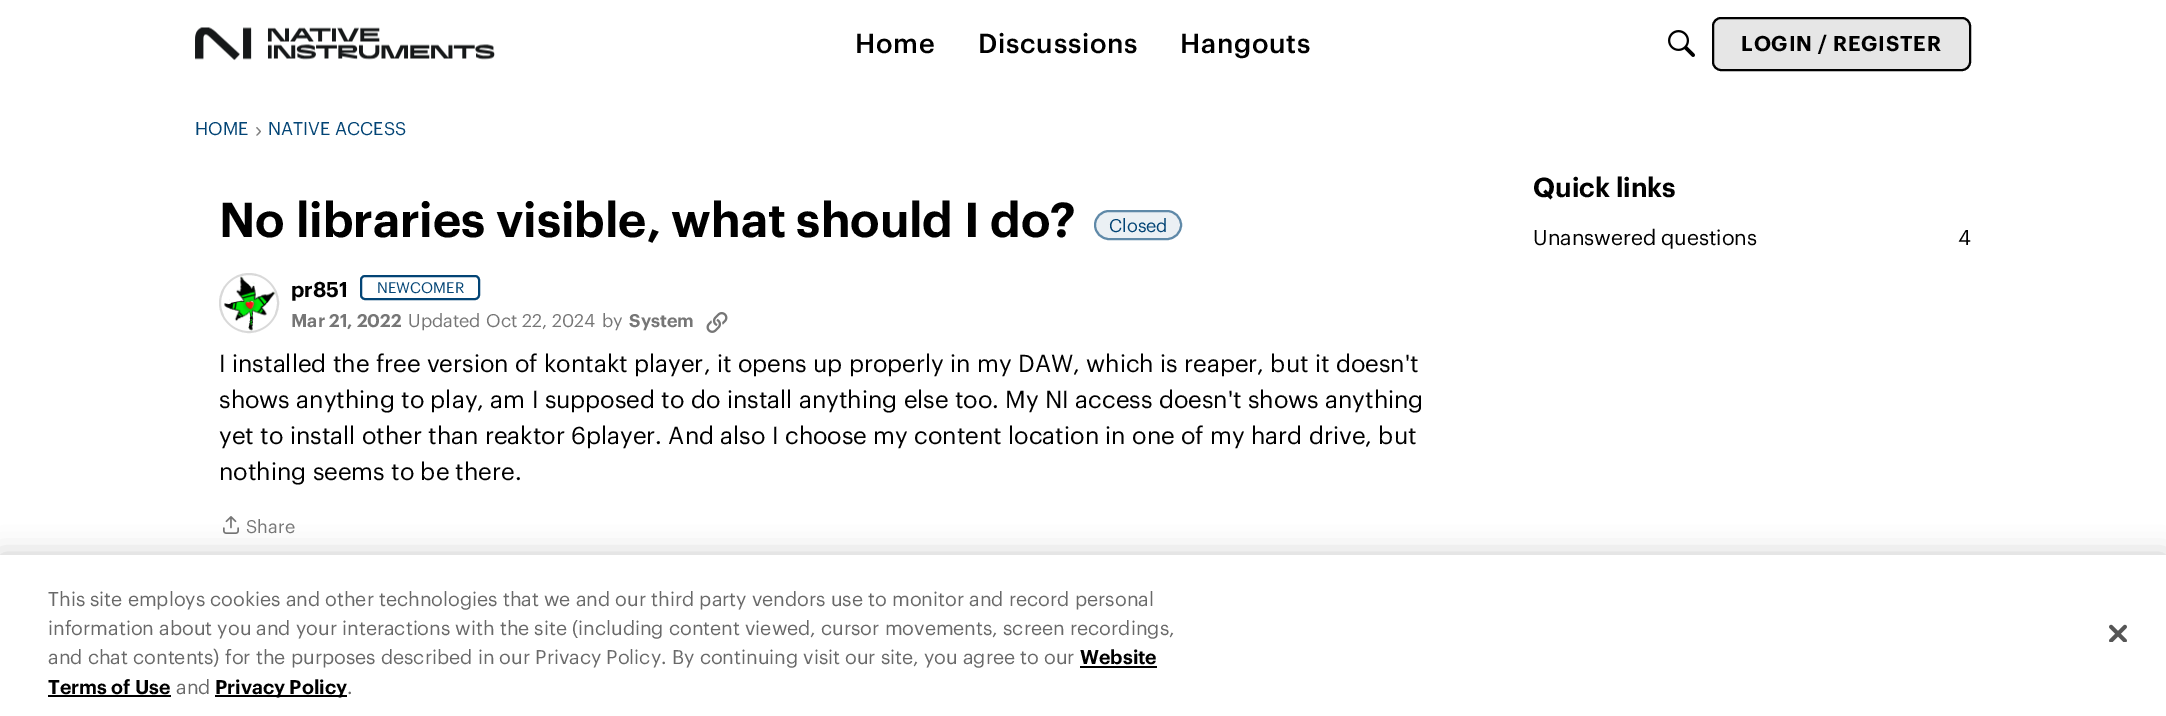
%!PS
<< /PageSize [2166 716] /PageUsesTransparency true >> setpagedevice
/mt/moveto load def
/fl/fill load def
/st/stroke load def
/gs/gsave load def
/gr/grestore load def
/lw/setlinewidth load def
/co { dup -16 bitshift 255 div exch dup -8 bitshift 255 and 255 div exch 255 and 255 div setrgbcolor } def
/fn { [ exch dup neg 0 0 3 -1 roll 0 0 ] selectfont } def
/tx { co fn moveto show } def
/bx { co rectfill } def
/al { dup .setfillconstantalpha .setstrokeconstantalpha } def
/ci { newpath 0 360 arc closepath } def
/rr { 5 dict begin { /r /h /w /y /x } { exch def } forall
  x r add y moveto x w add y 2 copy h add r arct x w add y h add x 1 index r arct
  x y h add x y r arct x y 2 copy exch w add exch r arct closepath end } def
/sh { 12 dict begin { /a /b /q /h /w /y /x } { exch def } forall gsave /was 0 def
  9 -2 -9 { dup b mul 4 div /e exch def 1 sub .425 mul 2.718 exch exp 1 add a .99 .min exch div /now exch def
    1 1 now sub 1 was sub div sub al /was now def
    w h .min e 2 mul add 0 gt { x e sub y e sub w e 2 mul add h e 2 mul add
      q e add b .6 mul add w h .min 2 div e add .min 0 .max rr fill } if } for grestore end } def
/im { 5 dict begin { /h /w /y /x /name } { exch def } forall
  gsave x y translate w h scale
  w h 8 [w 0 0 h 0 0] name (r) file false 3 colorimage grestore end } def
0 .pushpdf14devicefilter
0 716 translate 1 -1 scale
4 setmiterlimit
0 0 2166 716 16#FFFFFF bx
(media/1.raw) 195 27 300 34 im
(media/2.raw) 1668 30 27 27 im
16#E6E6E6 co
1713 18 257 52 8 rr gs fl gr
16#000000 co
2 lw
st
16#EBF0F4 co
1094 210 88 30 15 rr fl
0.6 al
16#024475 co
1095 211 86 28 14 rr st
1 al
16#D9D9D9 co
249 303 29 ci st
(media/3.raw) 224 276 51 55 im
16#024475 co
361 276 118 23 4 rr st
(media/4.raw) 706 312 22 21 im
(media/5.raw) 223 516 16 18 im
16#000000 co
0 555 2166 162 0 13.5 .2 sh
0 555 2166 161 16#FFFFFF bx
1080 666 77 2 16#000000 bx
48 695 123 2 16#000000 bx
215 695 132 2 16#000000 bx
(media/6.raw) 2109 624 18 18 im
/Graphik-Medium 27 fn
855 53 mt .75 0 (Home) ashow
978 53 mt .75 0 (Discussions) ashow
1180 53 mt .75 0 (Hangouts) ashow
/Graphik-SemiBold 21 fn
1741 51 mt .75 0 (LOGIN / REGISTER) ashow
(HOME) 195 135 /Graphik-Regular 18 16#024475 tx
(›) 255 137 /LiberationSans-Regular 21 16#808080 tx
(NATIVE ACCESS) 268 135 /Graphik-Regular 18 16#024475 tx
(No libraries visible, what should I do?) 219 237 /Graphik-SemiBold 48 16#000000 tx
(Closed) 1109 232 /Graphik-Regular 18 16#024475 tx
(pr851) 291 297 /Graphik-SemiBold 21 16#000000 tx
(NEWCOMER) 377 293 /Graphik-Regular 15 16#024475 tx
(Mar 21, 2022) 291 327 /Graphik-SemiBold 18 16#767676 tx
(Updated) 408 327 /Graphik-Regular 18 16#767676 tx
(Oct 22, 2024) 486 327 /Graphik-Regular 18 16#767676 tx
(by) 602 327 /Graphik-Regular 18 16#767676 tx
(System) 629 327 /Graphik-SemiBold 18 16#767676 tx
(I installed the free version of kontakt player, it opens up properly in my DAW, which is reaper, but it doesn't) 219 372 /Graphik-Regular 24 16#000000 tx
(shows anything to play, am I supposed to do install anything else too. My NI access doesn't shows anything) 219 408 /Graphik-Regular 24 16#000000 tx
(yet to install other than reaktor 6player. And also I choose my content location in one of my hard drive, but) 219 444 /Graphik-Regular 24 16#000000 tx
(nothing seems to be there.) 219 480 /Graphik-Regular 24 16#000000 tx
(Share) 246 533 /Graphik-Regular 18 16#767676 tx
(Quick links) 1533 197 /Graphik-SemiBold 27 16#000000 tx
(Unanswered questions) 1533 245 /Graphik-Regular 21 16#000000 tx
(4) 1958 245 /Graphik-Regular 21 16#000000 tx
(This site employs cookies and other technologies that we and our third party vendors use to monitor and record personal) 48 606 /Graphik-Regular 19.5 16#696969 tx
(information about you and your interactions with the site \(including content viewed, cursor movements, screen recordings,) 48 635 /Graphik-Regular 19.5 16#696969 tx
(and chat contents\) for the purposes described in our Privacy Policy.) 48 664 /Graphik-Regular 19.5 16#696969 tx
(By continuing visit our site, you agree to our) 672 664 /Graphik-Regular 19.5 16#696969 tx
(Website) 1080 664 /Graphik-SemiBold 19.5 16#000000 tx
(Terms of Use) 48 694 /Graphik-SemiBold 19.5 16#000000 tx
(and) 176 694 /Graphik-Regular 19.5 16#696969 tx
(Privacy Policy) 215 694 /Graphik-SemiBold 19.5 16#000000 tx
(.) 347 694 /Graphik-Regular 19.5 16#696969 tx
.poppdf14devicefilter showpage
